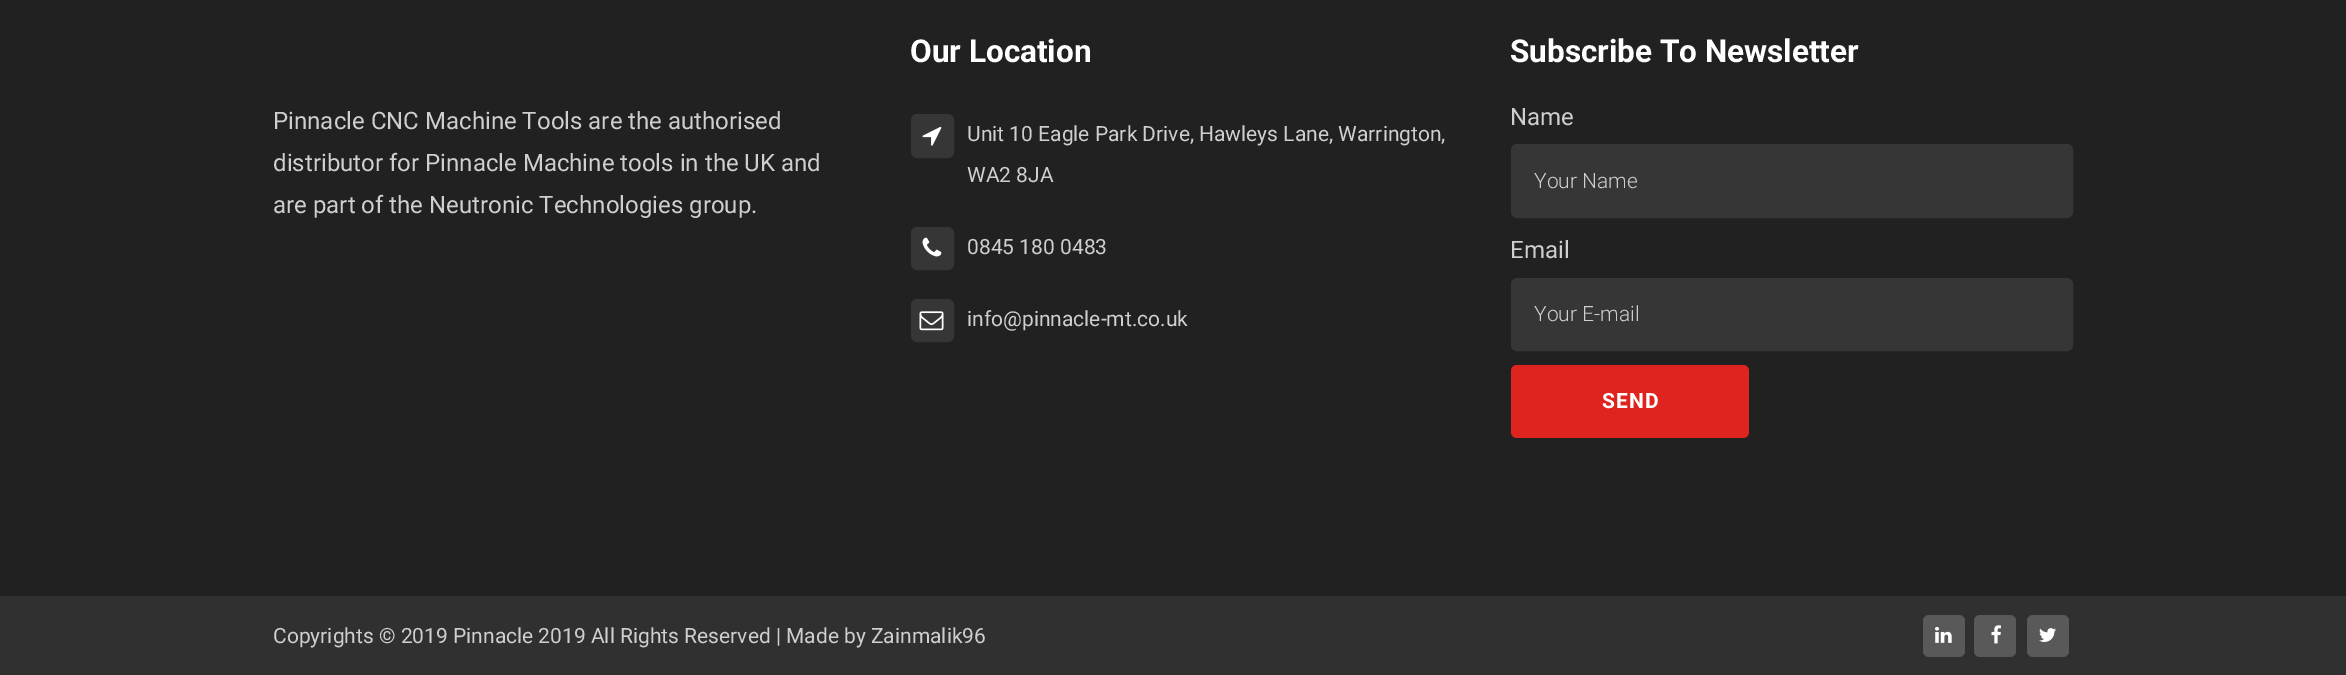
%!PS
<< /PageSize [2346 675] >> setpagedevice
/mt/moveto load def
/fl/fill load def
/st/stroke load def
/gs/gsave load def
/gr/grestore load def
/lw/setlinewidth load def
/co { dup -16 bitshift 255 div exch dup -8 bitshift 255 and 255 div exch 255 and 255 div setrgbcolor } def
/fn { [ exch dup neg 0 0 3 -1 roll 0 0 ] selectfont } def
/tx { co fn moveto show } def
/bx { co rectfill } def
/rr { 5 dict begin { /r /h /w /y /x } { exch def } forall
  x r add y moveto x w add y 2 copy h add r arct x w add y h add x 1 index r arct
  x y h add x y r arct x y 2 copy exch w add exch r arct closepath end } def
/im { 5 dict begin { /h /w /y /x /name } { exch def } forall
  gsave x y translate w h scale
  w h 8 [w 0 0 h 0 0] name (r) file false 3 colorimage grestore end } def
0 675 translate 1 -1 scale
4 setmiterlimit
0 0 2346 675 16#303030 bx
0 0 2346 596 16#212121 bx
16#363636 co
912 115 41 42 5 rr gs fl gr
2 lw
st
(media/1.raw) 922 126 20 20 im
912 228 41 41 5 rr gs fl gr
st
(media/2.raw) 922 237 20 20 im
912 300 41 41 5 rr gs fl gr
st
(media/3.raw) 919 311 25 20 im
1512 145 560 72 5 rr gs fl gr
st
1512 279 560 71 5 rr gs fl gr
st
16#DF241F co
1511 365 238 73 6 rr fl
16#5A5959 co
1923 615 42 42 6 rr fl
(media/4.raw) 1935 626 17 17 im
1974 615 42 42 6 rr fl
(media/5.raw) 1991 625 10 19 im
2027 615 42 42 6 rr fl
(media/6.raw) 2039 628 17 14 im
(Pinnacle CNC Machine Tools are the authorised) 273 129 /Roboto-Regular 24 16#CFCFCF tx
(distributor for Pinnacle Machine tools in the UK and) 273 171 /Roboto-Regular 24 16#CFCFCF tx
(are part of the Neutronic Technologies group.) 273 213 /Roboto-Regular 24 16#CFCFCF tx
(Our Location) 910 62 /Roboto-Bold 31.5 16#FFFFFF tx
(Unit 10 Eagle Park Drive, Hawleys Lane, Warrington,) 967 141 /Roboto-Regular 21 16#CFCFCF tx
(WA2 8JA) 967 182 /Roboto-Regular 21 16#CFCFCF tx
(0845 180 0483) 967 254 /Roboto-Regular 21 16#CFCFCF tx
(info@pinnacle-mt.co.uk) 967 326 /Roboto-Regular 21 16#CFCFCF tx
(Subscribe To Newsletter) 1510 62 /Roboto-Bold 31.5 16#FFFFFF tx
(Name) 1510 125 /Roboto-Regular 24 16#CFCFCF tx
(Your Name) 1534 188 /Roboto-Light 21 16#CFCFCF tx
(Email) 1510 258 /Roboto-Regular 24 16#CFCFCF tx
(Your E-mail) 1534 321 /Roboto-Light 21 16#CFCFCF tx
/Roboto-Bold 21 fn
16#FFFFFF co
1602 408 mt 1 0 (SEND) ashow
(Copyrights © 2019 Pinnacle 2019 All Rights Reserved | Made by Zainmalik96) 273 643 /Roboto-Regular 21 16#CFCFCF tx
showpage
